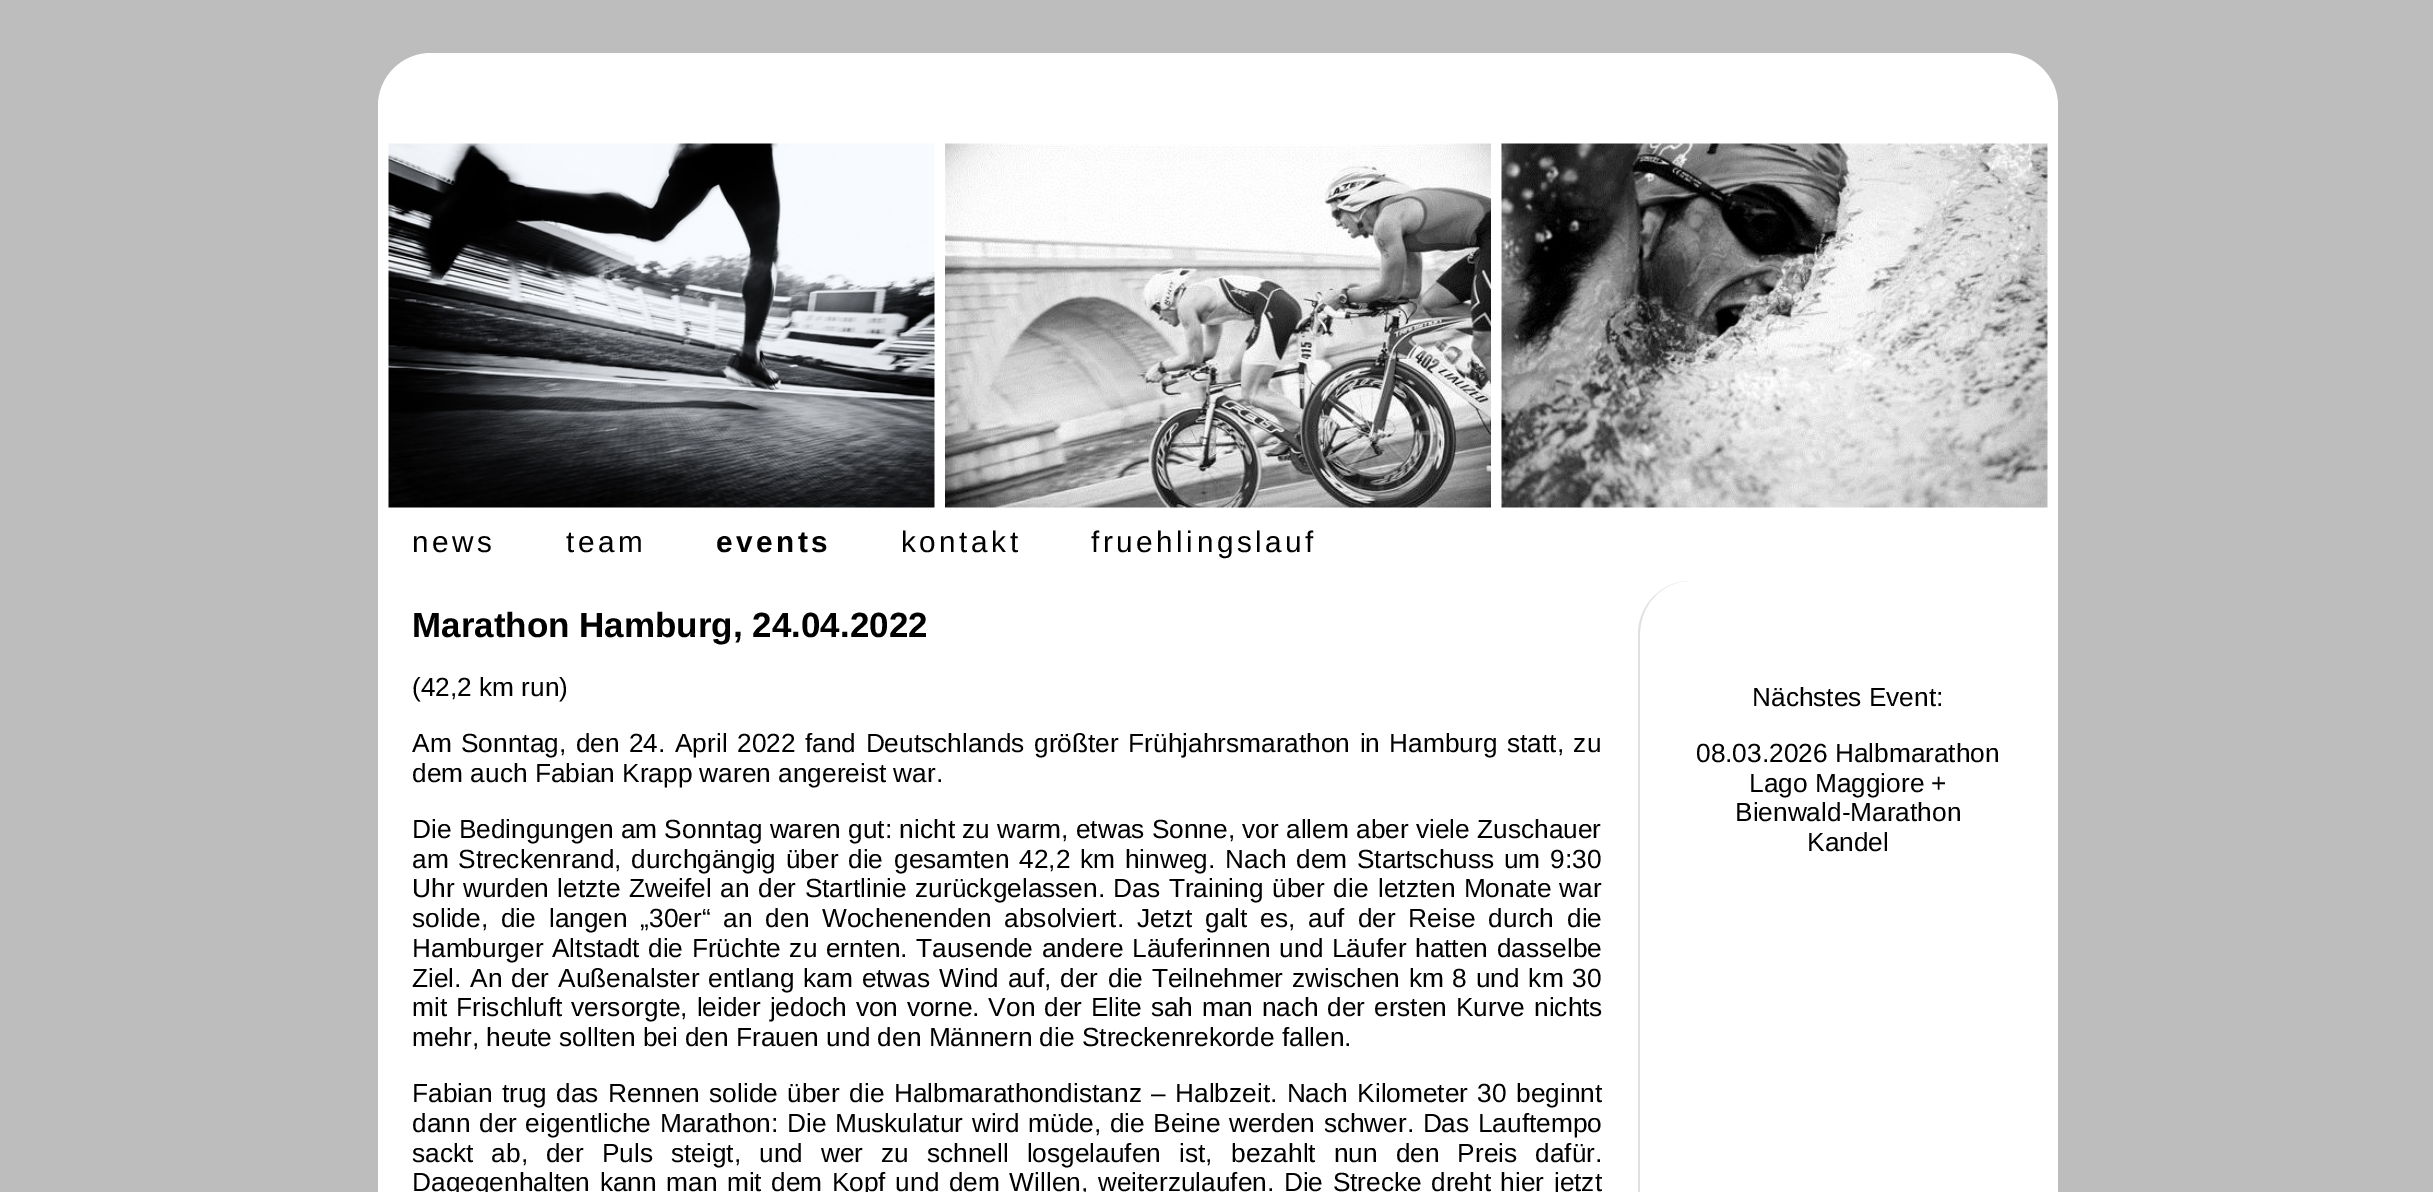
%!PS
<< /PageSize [2433 1192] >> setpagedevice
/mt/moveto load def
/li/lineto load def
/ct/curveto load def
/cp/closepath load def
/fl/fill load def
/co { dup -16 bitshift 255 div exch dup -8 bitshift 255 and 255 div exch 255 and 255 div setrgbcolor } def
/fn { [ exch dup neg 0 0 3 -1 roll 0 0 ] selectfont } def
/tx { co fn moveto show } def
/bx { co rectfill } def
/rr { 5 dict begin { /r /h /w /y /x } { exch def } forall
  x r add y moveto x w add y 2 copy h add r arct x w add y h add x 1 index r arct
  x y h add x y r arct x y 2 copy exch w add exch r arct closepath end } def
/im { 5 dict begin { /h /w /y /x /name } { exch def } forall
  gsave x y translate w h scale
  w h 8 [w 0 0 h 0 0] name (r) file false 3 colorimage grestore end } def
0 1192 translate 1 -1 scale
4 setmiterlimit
0 0 2433 1192 16#BDBDBD bx
16#FFFFFF co
378 53 1680 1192 53 rr fl
(media/1.raw) 388 143 547 365 im
(media/2.raw) 945 143 546 365 im
(media/3.raw) 1501 143 547 365 im
16#E0E0E0 co
1690 581 mt 2058 581 li 2058 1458 li 1690 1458 li 1662 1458 1638 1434 1638 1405 ct 1638 634 li 1638 605 1662 581 1690 581 ct cp 1690 581 mt 2058 581 li 2058 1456 li 1690 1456 li 1662 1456 1640 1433 1640 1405 ct 1640 634 li 1640 605 1662 581 1690 581 ct cp eofill
/LiberationSans-Regular 29.75 fn
16#000000 co
412 552 mt 3.5 0 (news) ashow
566 552 mt 3.5 0 (team) ashow
/LiberationSans-Bold 29.75 fn
716 552 mt 3.5 0 (events) ashow
/LiberationSans-Regular 29.75 fn
901 552 mt 3.5 0 (kontakt) ashow
1091 552 mt 3.5 0 (fruehlingslauf) ashow
(Marathon Hamburg, 24.04.2022) 412 637 /LiberationSans-Bold 35 16#000000 tx
(\(42,2 km run\)) 412 696 /LiberationSans-Regular 26.25 16#000000 tx
412 752 mt 2.25 0 32 (Am Sonntag, den 24. April 2022 fand Deutschlands größter Frühjahrsmarathon in Hamburg statt, zu) widthshow
(dem auch Fabian Krapp waren angereist war.) 412 782 /LiberationSans-Regular 26.25 16#000000 tx
(Die Bedingungen am Sonntag waren gut: nicht zu warm, etwas Sonne, vor allem aber viele Zuschauer) 412 838 /LiberationSans-Regular 26.25 16#000000 tx
412 868 mt 2.5 0 32 (am Streckenrand, durchgängig über die) widthshow
894 868 mt 2.5 0 32 (gesamten 42,2 km hinweg. Nach dem Startschuss um 9:30) widthshow
412 897 mt 1.25 0 32 (Uhr wurden letzte Zweifel an der Startlinie zurückgelassen. Das Training über die) widthshow
1378 897 mt 1 0 32 (letzten Monate war) widthshow
412 927 mt 5.6 0 32 (solide, die langen „30er“ an den Wochenenden absolviert. Jetzt galt es, auf der Reise durch die) widthshow
412 957 mt 1.4 0 32 (Hamburger Altstadt) widthshow
648 957 mt 1.4 0 32 (die Früchte zu ernten. Tausende andere Läuferinnen und Läufer hatten dasselbe) widthshow
412 987 mt 1.5 0 32 (Ziel. An der Außenalster entlang kam etwas Wind auf, der) widthshow
1108 987 mt 1.5 0 32 (die Teilnehmer zwischen km 8 und km 30) widthshow
412 1016 mt 1.5 0 32 (mit Frischluft versorgte, leider jedoch von vorne. Von der Elite sah man nach der ersten Kurve) widthshow
(nichts) 1534 1016 /LiberationSans-Regular 26.25 16#000000 tx
(mehr, heute sollten bei den Frauen und den Männern die Streckenrekorde fallen.) 412 1046 /LiberationSans-Regular 26.25 16#000000 tx
412 1102 mt 2.1 0 32 (Fabian trug das Rennen solide über die Halbmarathondistanz – Halbzeit. Nach Kilometer 30 beginnt) widthshow
412 1132 mt 1.25 0 32 (dann der eigentliche) widthshow
660 1132 mt 1.25 0 32 (Marathon: Die Muskulatur wird müde, die Beine werden schwer. Das Lauftempo) widthshow
412 1162 mt 10.75 0 32 (sackt ab, der Puls steigt, und wer zu schnell losgelaufen ist,) widthshow
1231 1162 mt 10.75 0 32 (bezahlt nun den Preis dafür.) widthshow
412 1191 mt 2.25 0 32 (Dagegenhalten kann man mit dem Kopf und dem Willen, weiterzulaufen. Die Strecke dreht hier jetzt) widthshow
(Nächstes Event:) 1752 706 /LiberationSans-Regular 26.25 16#000000 tx
(08.03.2026 Halbmarathon) 1696 762 /LiberationSans-Regular 26.25 16#000000 tx
(Lago Maggiore +) 1749 792 /LiberationSans-Regular 26.25 16#000000 tx
(Bienwald-Marathon) 1735 821 /LiberationSans-Regular 26.25 16#000000 tx
(Kandel) 1807 851 /LiberationSans-Regular 26.25 16#000000 tx
showpage
